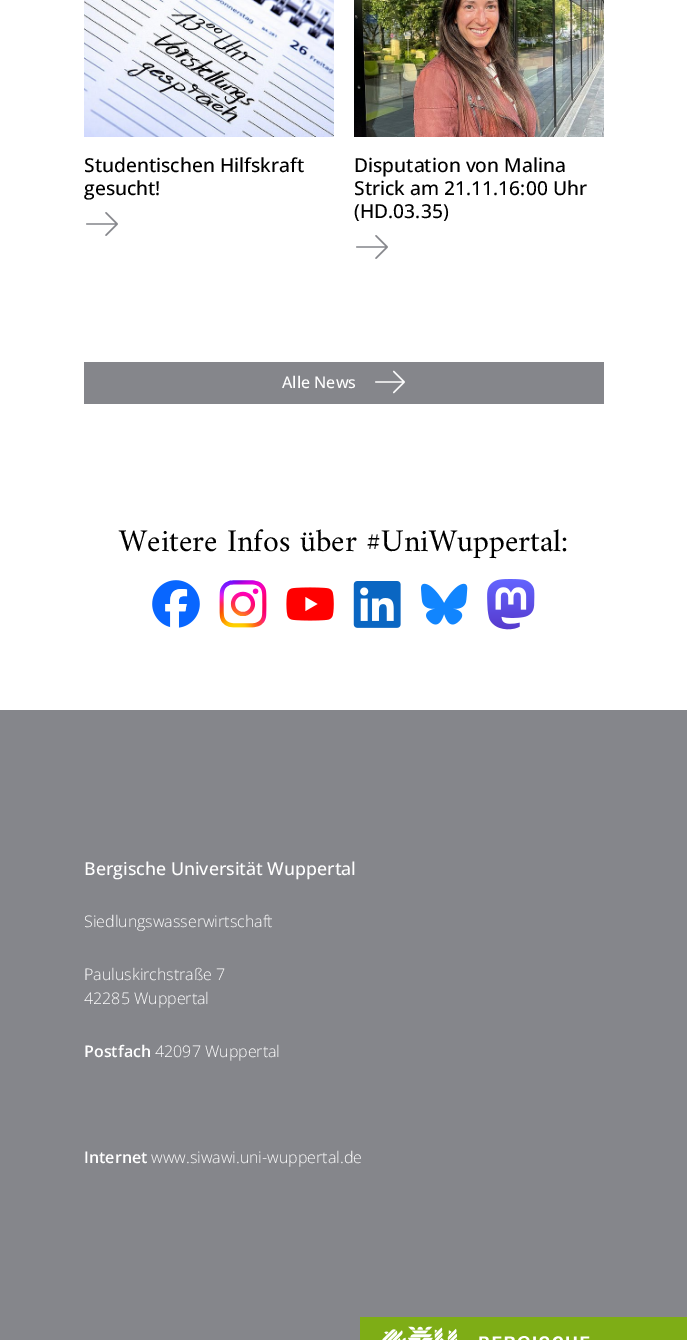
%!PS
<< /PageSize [687 1340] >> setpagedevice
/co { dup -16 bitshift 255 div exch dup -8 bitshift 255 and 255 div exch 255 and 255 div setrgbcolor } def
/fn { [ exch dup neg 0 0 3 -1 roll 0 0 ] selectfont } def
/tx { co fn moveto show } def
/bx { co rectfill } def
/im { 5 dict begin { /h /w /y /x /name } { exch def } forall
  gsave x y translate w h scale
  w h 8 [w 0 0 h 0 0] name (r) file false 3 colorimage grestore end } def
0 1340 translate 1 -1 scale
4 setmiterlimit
0 0 687 1340 16#FFFFFF bx
(media/1.raw) 84 0 250 137 im
(media/2.raw) 86 212 32 24 im
(media/3.raw) 354 0 250 137 im
(media/2.raw) 356 235 32 24 im
84 362 520 42 16#85868B bx
(media/4.raw) 375 370 30 24 im
(media/5.raw) 152 580 48 48 im
(media/6.raw) 219 580 48 48 im
(media/7.raw) 286 587 48 34 im
(media/8.raw) 353 581 48 47 im
(media/9.raw) 421 583 47 42 im
(media/10.raw) 487 579 48 51 im
0 710 687 630 16#85868B bx
360 1317 327 23 16#7EAD16 bx
(media/11.raw) 382 1326 208 14 im
(Studentischen Hilfskraft) 84 172 /OpenSans-Medium 19.25 16#000000 tx
(gesucht!) 84 195 /OpenSans-Medium 19.25 16#000000 tx
(Disputation von Malina) 354 172 /OpenSans-Medium 19.25 16#000000 tx
(Strick am 21.11.16:00 Uhr) 354 195 /OpenSans-Medium 19.25 16#000000 tx
(\(HD.03.35\)) 354 218 /OpenSans-Medium 19.25 16#000000 tx
(Alle News) 282 388 /OpenSans-Medium 16 16#FFFFFF tx
(Weitere Infos über #UniWuppertal:) 119 551 /Amiri-Regular 32 16#000000 tx
(Bergische Universität Wuppertal) 84 875 /OpenSans-Medium 17.75 16#FFFFFF tx
(Siedlungswasserwirtschaft) 84 927 /OpenSans-Light 16 16#FFFFFF tx
(Pauluskirchstraße 7) 84 980 /OpenSans-Light 16 16#FFFFFF tx
(42285 Wuppertal) 84 1004 /OpenSans-Light 16 16#FFFFFF tx
(Postfach) 84 1057 /OpenSans-SemiBold 16 16#FFFFFF tx
(42097 Wuppertal) 155 1057 /OpenSans-Light 16 16#FFFFFF tx
(Internet) 84 1163 /OpenSans-SemiBold 16 16#FFFFFF tx
(www.siwawi.uni-wuppertal.de) 151 1163 /OpenSans-Light 16 16#FFFFFF tx
showpage
